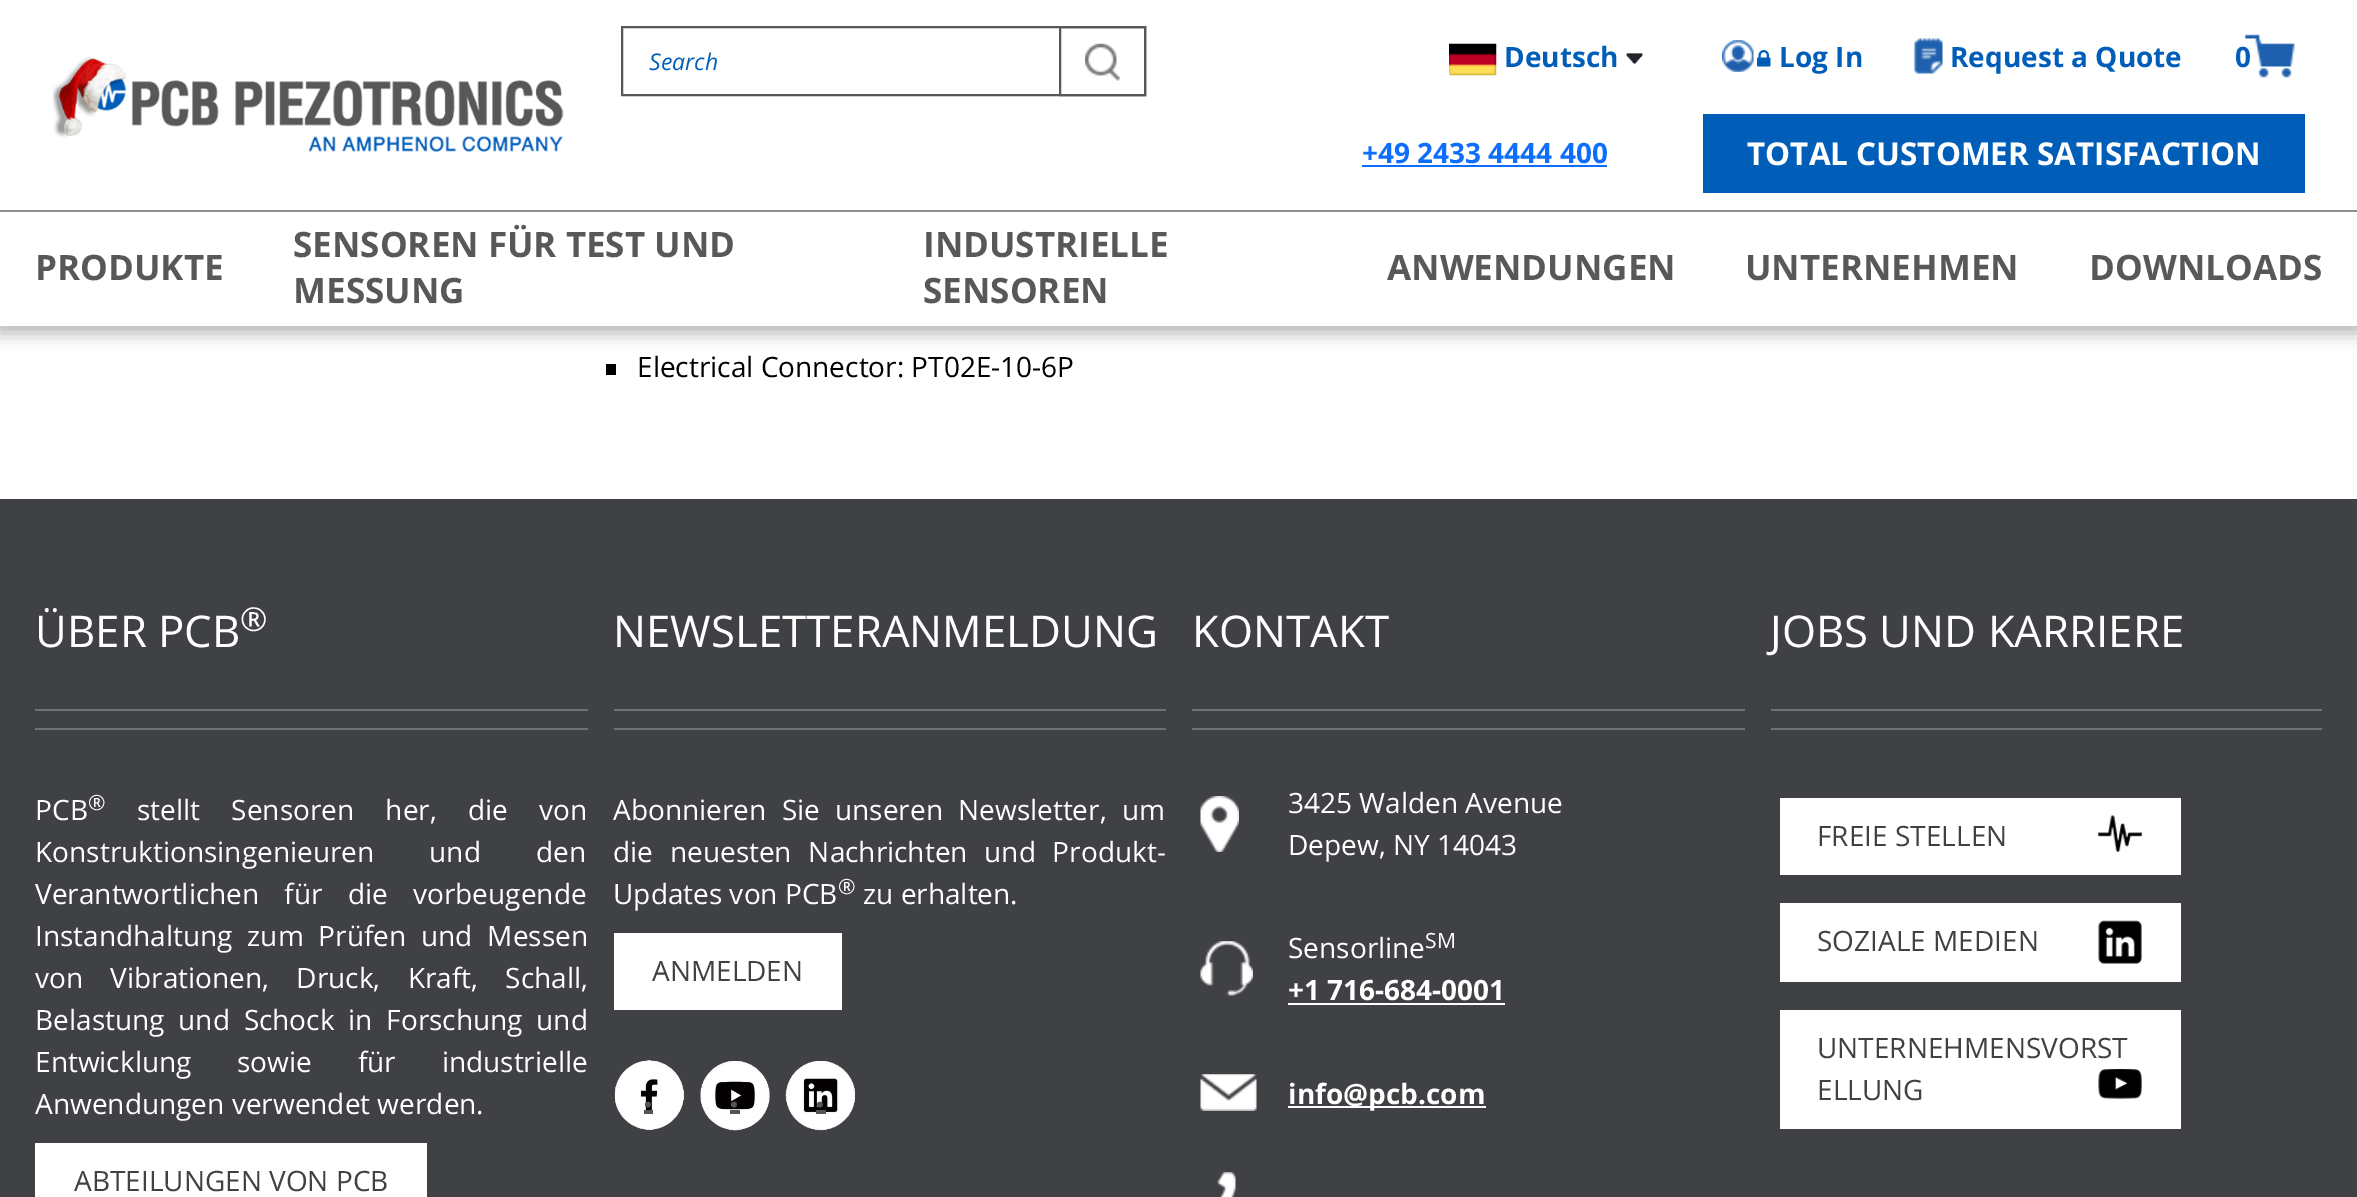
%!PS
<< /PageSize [2357 1197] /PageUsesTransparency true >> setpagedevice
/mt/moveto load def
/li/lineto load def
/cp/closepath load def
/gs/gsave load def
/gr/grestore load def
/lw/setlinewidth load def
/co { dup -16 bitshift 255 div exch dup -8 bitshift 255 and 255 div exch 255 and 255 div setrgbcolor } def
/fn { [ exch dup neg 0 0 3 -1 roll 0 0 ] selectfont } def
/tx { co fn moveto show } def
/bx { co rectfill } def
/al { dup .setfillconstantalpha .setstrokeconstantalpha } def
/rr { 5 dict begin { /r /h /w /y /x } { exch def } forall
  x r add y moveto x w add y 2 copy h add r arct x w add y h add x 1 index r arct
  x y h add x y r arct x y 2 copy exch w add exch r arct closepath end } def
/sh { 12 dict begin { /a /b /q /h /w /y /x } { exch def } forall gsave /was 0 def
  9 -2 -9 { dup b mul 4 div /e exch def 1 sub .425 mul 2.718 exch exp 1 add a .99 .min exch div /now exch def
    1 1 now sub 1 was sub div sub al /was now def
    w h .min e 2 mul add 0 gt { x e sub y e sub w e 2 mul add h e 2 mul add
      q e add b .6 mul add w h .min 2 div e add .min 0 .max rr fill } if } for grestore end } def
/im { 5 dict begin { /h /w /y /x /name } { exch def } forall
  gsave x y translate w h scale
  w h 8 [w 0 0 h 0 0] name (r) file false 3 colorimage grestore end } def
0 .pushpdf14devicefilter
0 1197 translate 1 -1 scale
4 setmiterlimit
0 0 2357 1197 16#FFFFFF bx
gs
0 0 mt 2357 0 li 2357 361 li 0 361 li cp 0 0 mt 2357 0 li 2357 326 li 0 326 li cp eoclip newpath
16#000000 co
-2 4 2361 329 0 9 .3 sh
gr
(media/1.raw) 53 56 511 96 im
(media/2.raw) 1449 43 48 33 im
(media/3.raw) 1625 53 19 11 im
(media/4.raw) 1722 40 32 32 im
(media/5.raw) 1757 50 14 17 im
(media/6.raw) 1914 38 29 36 im
(media/7.raw) 2244 34 51 44 im
0 210 2357 2 16#8C8D8E bx
16#58585B co
2 lw
622 27 523 68 rectstroke
(media/8.raw) 1085 43 35 38 im
1060 27 85 68 rectstroke
1362 165 245 2 16#0D6EFD bx
1703 114 602 79 16#005EB8 bx
606 364 10 11 16#000000 bx
0 499 2357 698 16#404145 bx
35 709 553 2 16#707174 bx
35 728 553 2 16#707174 bx
35 1143 392 54 16#FFFFFF bx
614 709 552 2 16#707174 bx
614 728 552 2 16#707174 bx
614 933 228 77 16#FFFFFF bx
(media/9.raw) 614 1060 71 70 im
644 1110 9 4 16#555555 bx
(media/10.raw) 700 1060 70 71 im
730 1110 10 4 16#555555 bx
(media/11.raw) 785 1061 70 70 im
816 1110 10 4 16#555555 bx
1192 709 553 2 16#707174 bx
1192 728 553 2 16#707174 bx
(media/12.raw) 1200 796 39 56 im
(media/13.raw) 1200 941 53 55 im
1288 1003 217 2 16#FFFFFF bx
(media/14.raw) 1200 1074 57 37 im
1288 1106 198 2 16#FFFFFF bx
(media/15.raw) 1217 1172 19 25 im
1771 709 551 2 16#707174 bx
1771 728 551 2 16#707174 bx
1780 798 401 77 16#FFFFFF bx
(media/16.raw) 2098 815 44 37 im
1780 903 401 79 16#FFFFFF bx
(media/17.raw) 2098 920 44 44 im
1780 1010 401 119 16#FFFFFF bx
(media/18.raw) 2098 1069 44 30 im
(Deutsch) 1504 67 /OpenSans-Bold 28 16#005EB8 tx
(Log In) 1779 67 /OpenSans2-Bold 28 16#005EB8 tx
(Request a Quote) 1950 67 /OpenSans-Bold 28 16#005EB8 tx
(0) 2235 67 /OpenSans-Bold 28 16#005EB8 tx
(PRODUKTE) 35 280 /OpenSans-Bold 35 16#58585B tx
(SENSOREN FÜR TEST UND) 293 257 /OpenSans-Bold 35 16#58585B tx
(MESSUNG) 293 303 /OpenSans-Bold 35 16#58585B tx
(INDUSTRIELLE) 923 257 /OpenSans-Bold 35 16#58585B tx
(SENSOREN) 923 303 /OpenSans-Bold 35 16#58585B tx
(ANWENDUNGEN) 1387 280 /OpenSans-Bold 35 16#58585B tx
(UNTERNEHMEN) 1745 280 /OpenSans-Bold 35 16#58585B tx
(DOWNLOADS) 2089 280 /OpenSans-Bold 35 16#58585B tx
(Search) 649 70 /OpenSans-Italic 23 16#005EB8 tx
(+49 2433 4444 400) 1362 163 /OpenSans2-Bold 28 16#0D6EFD tx
(TOTAL CUSTOMER SATISFACTION) 1747 165 /OpenSans-Bold 31.5 16#FFFFFF tx
(Electrical Connector: PT02E-10-6P) 637 377 /OpenSans-Regular 28 16#000000 tx
(ÜBER PCB) 35 647 /OpenSans2-Regular 43.75 16#FFFFFF tx
(®) 240 631 /OpenSans2-Regular 33 16#FFFFFF tx
(PCB) 35 820 /OpenSans2-Regular 28 16#FFFFFF tx
(®) 88 810 /OpenSans2-Regular 21 16#FFFFFF tx
/OpenSans2-Regular 28 fn
137 820 mt 24 0 32 (stellt Sensoren her, die von) widthshow
35 862 mt 48 0 32 (Konstruktionsingenieuren und den) widthshow
35 904 mt 18 0 32 (Verantwortlichen für die vorbeugende) widthshow
35 946 mt 7.5 0 32 (Instandhaltung zum Prüfen und Messen) widthshow
35 988 mt 20 0 32 (von Vibrationen, Druck, Kraft, Schall,) widthshow
35 1030 mt 6.5 0 32 (Belastung und Schock in Forschung und) widthshow
35 1072 mt 38.5 0 32 (Entwicklung sowie für industrielle) widthshow
(Anwendungen verwendet werden.) 35 1114 /OpenSans2-Regular 28 16#FFFFFF tx
(ABTEILUNGEN VON PCB) 74 1191 /OpenSans-Regular 28 16#404145 tx
(NEWSLETTERANMELDUNG) 613 647 /OpenSans2-Regular 43.75 16#FFFFFF tx
/OpenSans2-Regular 28 fn
613 820 mt 8 0 32 (Abonnieren Sie unseren Newsletter, um) widthshow
613 862 mt 9.5 0 32 (die neuesten Nachrichten und Produkt-) widthshow
(Updates von PCB) 613 904 /OpenSans2-Regular 28 16#FFFFFF tx
(®) 838 894 /OpenSans2-Regular 21 16#FFFFFF tx
(zu erhalten.) 863 904 /OpenSans2-Regular 28 16#FFFFFF tx
(ANMELDEN) 652 981 /OpenSans-Regular 28 16#404145 tx
(.) 643 1107 /OpenSans-Bold 35 16#555555 tx
(.) 729 1107 /OpenSans-Bold 35 16#555555 tx
(.) 815 1107 /OpenSans-Bold 35 16#555555 tx
(KONTAKT) 1192 647 /OpenSans2-Regular 43.75 16#FFFFFF tx
(3425 Walden Avenue) 1288 813 /OpenSans2-Regular 28 16#FFFFFF tx
(Depew, NY 14043) 1288 855 /OpenSans2-Regular 28 16#FFFFFF tx
(Sensorline) 1288 958 /OpenSans2-Regular 28 16#FFFFFF tx
(SM) 1425 948 /OpenSans2-Regular 21 16#FFFFFF tx
(+1 716-684-0001) 1288 1000 /OpenSans2-Bold 28 16#FFFFFF tx
(info@pcb.com) 1288 1104 /OpenSans2-Bold 28 16#FFFFFF tx
(JOBS UND KARRIERE) 1770 647 /OpenSans2-Regular 43.75 16#FFFFFF tx
(FREIE STELLEN) 1817 846 /OpenSans-Regular 28 16#404145 tx
(SOZIALE MEDIEN) 1817 951 /OpenSans-Regular 28 16#404145 tx
(UNTERNEHMENSVORST) 1817 1058 /OpenSans-Regular 28 16#404145 tx
(ELLUNG) 1817 1100 /OpenSans-Regular 28 16#404145 tx
.poppdf14devicefilter showpage
